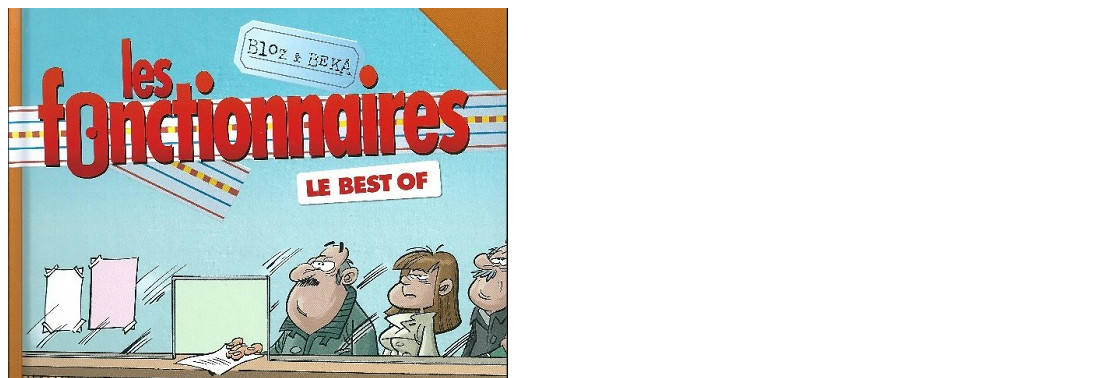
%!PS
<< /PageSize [1094 378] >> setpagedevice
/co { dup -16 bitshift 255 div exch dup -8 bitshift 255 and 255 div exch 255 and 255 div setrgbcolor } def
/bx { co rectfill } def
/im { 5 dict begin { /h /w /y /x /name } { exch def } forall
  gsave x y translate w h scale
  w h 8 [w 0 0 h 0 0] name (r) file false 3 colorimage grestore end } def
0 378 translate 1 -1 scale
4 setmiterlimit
0 0 1094 378 16#FFFFFF bx
(media/1.raw) 8 8 500 370 im
showpage
